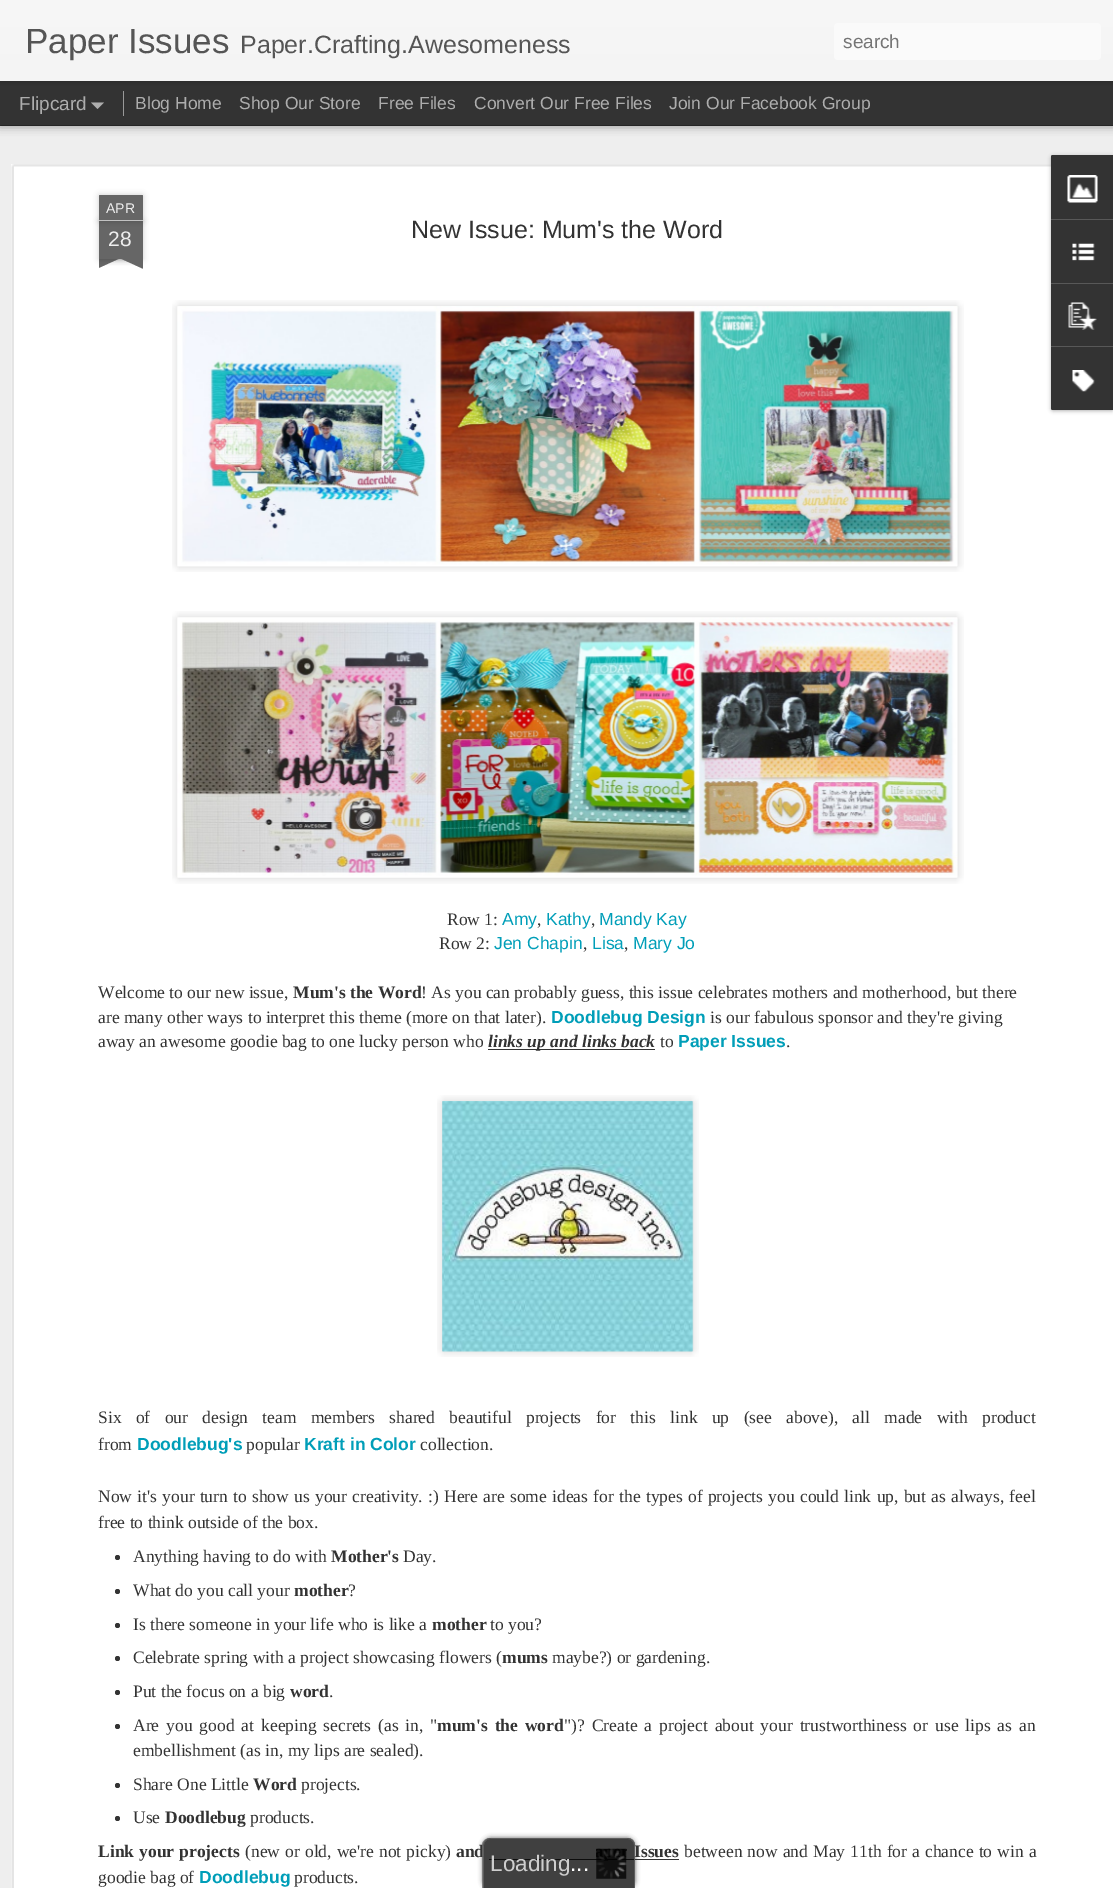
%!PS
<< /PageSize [1113 1888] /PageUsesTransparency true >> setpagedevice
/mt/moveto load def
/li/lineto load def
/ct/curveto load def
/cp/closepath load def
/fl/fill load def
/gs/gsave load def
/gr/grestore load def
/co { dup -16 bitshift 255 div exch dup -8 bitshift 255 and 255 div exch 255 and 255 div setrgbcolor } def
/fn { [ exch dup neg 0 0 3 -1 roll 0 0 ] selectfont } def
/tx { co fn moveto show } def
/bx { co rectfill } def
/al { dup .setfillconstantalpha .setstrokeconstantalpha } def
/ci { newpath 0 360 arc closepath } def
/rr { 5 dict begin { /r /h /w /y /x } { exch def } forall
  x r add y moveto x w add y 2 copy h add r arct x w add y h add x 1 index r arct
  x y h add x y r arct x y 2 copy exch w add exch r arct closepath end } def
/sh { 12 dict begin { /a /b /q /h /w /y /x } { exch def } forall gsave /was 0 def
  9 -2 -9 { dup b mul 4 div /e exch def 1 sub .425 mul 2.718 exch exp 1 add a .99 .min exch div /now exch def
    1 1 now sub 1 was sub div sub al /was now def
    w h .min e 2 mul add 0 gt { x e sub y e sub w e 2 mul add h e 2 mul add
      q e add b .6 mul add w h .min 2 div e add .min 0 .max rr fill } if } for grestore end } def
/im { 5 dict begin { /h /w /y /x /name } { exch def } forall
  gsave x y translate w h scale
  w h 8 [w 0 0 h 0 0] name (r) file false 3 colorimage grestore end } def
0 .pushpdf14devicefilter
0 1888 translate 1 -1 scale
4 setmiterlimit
0 0 1113 1888 16#333333 bx
0 126 1113 1762 16#EEEEEE bx
16#000000 co
0 81 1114 44 0 5 .5 sh
0 81 1113 44 16#333333 bx
16#000000 co
0 0 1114 81 0 3 .3 sh
gs 0 0 mt 1113 0 li 1113 81 li 0 81 li cp clip newpath
<< /ShadingType 2 /ColorSpace /DeviceRGB /Coords [0 0 0 81] /Extend [true true] /Function << /FunctionType 2 /Domain [0 1] /C0 [.969 .969 .969] /C1 [.957 .957 .957] /N 1 >> >> shfill gr
16#FAFAFA co
834 23 267 37 4 rr fl
16#ADADAD co
91 102.5 mt 104 102.5 li 97.5 109 li cp fl
123 91 1 25 16#999999 bx
11 164 1102 1724 16#FFFFFF bx
(media/1.raw) 11 164 1040 1724 im
16#000000 co
99 221 44 38 0 3 .2 sh
99 221 44 38 16#666666 bx
16#000000 co
99 195 44 26 1 3 .2 sh
16#666666 co
100 195 mt 142 195 li 142.5 195 143 195.5 143 196 ct 143 221 li 99 221 li 99 196 li 99 195.5 99.5 195 100 195 ct cp fl
99 220 44 1 16#C2C2C2 bx
gs
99 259 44 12 rectclip
16#000000 co
88 246 62 13 0 3 .2 sh
gr
gs
99 259 44 12 rectclip
16#666666 co
87 260 mt 144 234 li 149 245 li 92 271 li cp fl
gr
gs
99 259 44 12 rectclip
16#000000 co
91 246 63 13 0 3 .2 sh
gr
gs
99 259 44 12 rectclip
16#666666 co
96 234 mt 153 260 li 148 271 li 91 245 li cp fl
gr
(media/2.raw) 172 300 792 272 im
(media/3.raw) 177 306 781 261 im
(media/4.raw) 172 611 792 273 im
(media/5.raw) 177 617 781 261 im
488 1049 167 1 16#333333 bx
(media/6.raw) 437 1095 262 262 im
(media/7.raw) 442 1101 251 251 im
117.5 1557.5 2.5 ci fl
117.5 1591.5 2.5 ci fl
117.5 1625.5 2.5 ci fl
117.5 1658.5 2.5 ci fl
117.5 1692.5 2.5 ci fl
117.5 1726.5 2.5 ci fl
117.5 1785.5 2.5 ci fl
117.5 1818.5 2.5 ci fl
489 1859 190 1 16#333333 bx
16#000000 co
1051 156 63 255 2.5 2 .3 sh
16#333333 co
1053.5 155 mt 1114 155 li 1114 410 li 1053.5 410 li 1052 410 1051 409 1051 407.5 ct 1051 157.5 li 1051 156 1052 155 1053.5 155 ct cp fl
1053.5 155 mt 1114 155 li 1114 219 li 1051 219 li 1051 157.5 li 1051 156 1052 155 1053.5 155 ct cp fl
(media/8.raw) 1067 175 31 28 im
1051 219 62 1 16#585858 bx
(media/9.raw) 1072 243 23 18 im
1051 283 62 1 16#585858 bx
(media/10.raw) 1068 302 29 28 im
16#333333 co
1051 346 mt 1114 346 li 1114 410 li 1053.5 410 li 1052 410 1051 409 1051 407.5 ct cp fl
1051 346 62 1 16#585858 bx
(media/11.raw) 1072 370 23 22 im
gs
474 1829 mt 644 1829 li 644 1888 li 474 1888 li cp 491 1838 mt 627 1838 li 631.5 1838 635 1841.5 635 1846 ct 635 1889 li 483 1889 li 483 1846 li 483 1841.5 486.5 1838 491 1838 ct cp eoclip newpath
16#333333 co
483 1838 152 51 8 2.5 .75 sh
gr
(Paper Issues) 25 53 /LiberationSans-Regular 35 16#555555 tx
(Paper.Crafting.Awesomeness) 240 53 /LiberationSans-Regular 25 16#555555 tx
(search) 843 48 /LiberationSans-Regular 19 16#757575 tx
(Flipcard) 19 110 /LiberationSans-Regular 19 16#ADADAD tx
(Blog Home) 135 109 /LiberationSans-Regular 17.5 16#ADADAD tx
(Shop Our Store) 239 109 /LiberationSans-Regular 17.5 16#ADADAD tx
(Free Files) 378 109 /LiberationSans-Regular 17.5 16#ADADAD tx
(Convert Our Free Files) 474 109 /LiberationSans-Regular 17.5 16#ADADAD tx
(Join Our Facebook Group) 669 109 /LiberationSans-Regular 17.5 16#ADADAD tx
(APR) 106 213 /LiberationSans-Regular 14 16#EEEEEE tx
(28) 108 246 /LiberationSans-Regular 21 16#EEEEEE tx
(New Issue: Mum's the Word) 411 238 /LiberationSans-Regular 25 16#333333 tx
(Row 1:) 447 925 /LiberationSerif-Regular 17.5 16#333333 tx
(Amy) 502 925 /LiberationSans-Regular 17.5 16#009EB8 tx
(,) 537 925 /LiberationSerif-Regular 17.5 16#333333 tx
(Kathy) 546 925 /LiberationSans-Regular 17.5 16#009EB8 tx
(,) 591 925 /LiberationSerif-Regular 17.5 16#333333 tx
(Mandy Kay) 599 925 /LiberationSans-Regular 17.5 16#009EB8 tx
(Row 2:) 439 949 /LiberationSerif-Regular 17.5 16#333333 tx
(Jen Chapin) 494 949 /LiberationSans-Regular 17.5 16#009EB8 tx
(,) 583 949 /LiberationSerif-Regular 17.5 16#333333 tx
(Lisa) 592 949 /LiberationSans-Regular 17.5 16#009EB8 tx
(,) 624 949 /LiberationSerif-Regular 17.5 16#333333 tx
(Mary Jo) 633 949 /LiberationSans-Regular 17.5 16#009EB8 tx
(Welcome to our new issue,) 98 998 /LiberationSerif-Regular 17.5 16#333333 tx
(Mum's the Word) 293 998 /LiberationSerif-Bold 17.5 16#333333 tx
(! As you can probably guess, this issue celebrates mothers and motherhood, but there) 421 998 /LiberationSerif-Regular 17.5 16#333333 tx
(are many other ways to interpret this theme \(more on that later\).) 98 1023 /LiberationSerif-Regular 17.5 16#333333 tx
(Doodlebug Design) 551 1023 /LiberationSans-Bold 17.5 16#009EB8 tx
(is our fabulous sponsor and they're giving) 710 1023 /LiberationSerif-Regular 17.5 16#333333 tx
(away an awesome goodie bag to one lucky person who) 98 1047 /LiberationSerif-Regular 17.5 16#333333 tx
(links up and links back) 488 1047 /LiberationSerif-BoldItalic 17.5 16#333333 tx
(to) 660 1047 /LiberationSerif-Regular 17.5 16#333333 tx
(Paper Issues) 678 1047 /LiberationSans-Bold 17.5 16#009EB8 tx
(.) 786 1047 /LiberationSerif-Regular 17.5 16#333333 tx
98 1423 mt 10 0 32 (Six of our design team members shared beautiful projects for this link up \(see above\), all made with product) widthshow
(from) 98 1450 /LiberationSerif-Regular 17.5 16#333333 tx
(Doodlebug's) 137 1450 /LiberationSans-Bold 17.5 16#009EB8 tx
(popular) 246 1450 /LiberationSerif-Regular 17.5 16#333333 tx
(Kraft in Color) 304 1450 /LiberationSans-Bold 17.5 16#009EB8 tx
(collection.) 420 1450 /LiberationSerif-Regular 17.5 16#333333 tx
98 1502 mt .9 0 32 (Now it's your turn to show us your creativity. :\)) widthshow
444 1502 mt .9 0 32 (Here are some ideas for the types of projects you could link up, but as always, feel) widthshow
(free to think outside of the box.) 98 1528 /LiberationSerif-Regular 17.5 16#333333 tx
(Anything having to do with) 133 1562 /LiberationSerif-Regular 17.5 16#333333 tx
(Mother's) 331 1562 /LiberationSerif-Bold 17.5 16#333333 tx
(Day.) 403 1562 /LiberationSerif-Regular 17.5 16#333333 tx
(What do you call your) 133 1596 /LiberationSerif-Regular 17.5 16#333333 tx
(mother) 294 1596 /LiberationSerif-Bold 17.5 16#333333 tx
(?) 348 1596 /LiberationSerif-Regular 17.5 16#333333 tx
(Is there someone in your life who is like a) 133 1630 /LiberationSerif-Regular 17.5 16#333333 tx
(mother) 432 1630 /LiberationSerif-Bold 17.5 16#333333 tx
(to you?) 490 1630 /LiberationSerif-Regular 17.5 16#333333 tx
(Celebrate spring with a project showcasing flowers \() 133 1663 /LiberationSerif-Regular 17.5 16#333333 tx
(mums) 502 1663 /LiberationSerif-Bold 17.5 16#333333 tx
(maybe?\) or gardening.) 552 1663 /LiberationSerif-Regular 17.5 16#333333 tx
(Put the focus on a big) 133 1697 /LiberationSerif-Regular 17.5 16#333333 tx
(word) 290 1697 /LiberationSerif-Bold 17.5 16#333333 tx
(.) 329 1697 /LiberationSerif-Regular 17.5 16#333333 tx
133 1731 mt 2.6 0 32 (Are you good at keeping secrets \(as in, ") widthshow
/LiberationSerif-Bold 17.5 fn
437 1731 mt 2.6 0 32 (mum's the word) widthshow
/LiberationSerif-Regular 17.5 fn
564 1731 mt 2.6 0 32 ("\)? Create a project about your trustworthiness or use lips as an) widthshow
(embellishment \(as in, my lips are sealed\).) 133 1756 /LiberationSerif-Regular 17.5 16#333333 tx
(Share One Little) 133 1790 /LiberationSerif-Regular 17.5 16#333333 tx
(Word) 253 1790 /LiberationSerif-Bold 17.5 16#333333 tx
(projects.) 301 1790 /LiberationSerif-Regular 17.5 16#333333 tx
(Use) 133 1823 /LiberationSerif-Regular 17.5 16#333333 tx
(Doodlebug) 165 1823 /LiberationSerif-Bold 17.5 16#333333 tx
(products.) 250 1823 /LiberationSerif-Regular 17.5 16#333333 tx
/LiberationSerif-Bold 17.5 fn
98 1857 mt .75 0 32 (Link your projects) widthshow
/LiberationSerif-Regular 17.5 fn
245 1857 mt .75 0 32 (\(new or old, we're not picky\)) widthshow
(and) 456 1857 /LiberationSerif-Bold 17.5 16#333333 tx
634 1857 mt .75 0 32 (Issues) widthshow
/LiberationSerif-Regular 17.5 fn
684 1857 mt .75 0 32 (between now and May 11th for a chance to win a) widthshow
(goodie bag of) 98 1883 /LiberationSerif-Regular 17.5 16#333333 tx
(Doodlebug) 199 1883 /LiberationSans-Bold 17.5 16#009EB8 tx
(products.) 294 1883 /LiberationSerif-Regular 17.5 16#333333 tx
0.75 al
16#000000 co
491 1838 mt 627 1838 li 631.5 1838 635 1841.5 635 1846 ct 635 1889 li 483 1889 li 483 1846 li 483 1841.5 486.5 1838 491 1838 ct cp fl
16#666666 co
490 1838 mt 628 1838 li 632 1838 635 1841 635 1845 ct 635 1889 li 482 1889 li 482 1845 li 482 1841 486 1838 490 1838 ct cp 490 1839 mt 628 1839 li 631 1839 634 1842 634 1845 ct 634 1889 li 484 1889 li 484 1845 li 484 1842 487 1839 490 1839 ct cp eofill
1 al
(media/12.raw) 596 1848 31 31 im
(Loading) 490 1871 /LiberationSans-Regular 22.5 16#CECECE tx
(...) 570 1871 /LiberationSans-Regular 22.5 16#FFFFFF tx
.poppdf14devicefilter showpage
